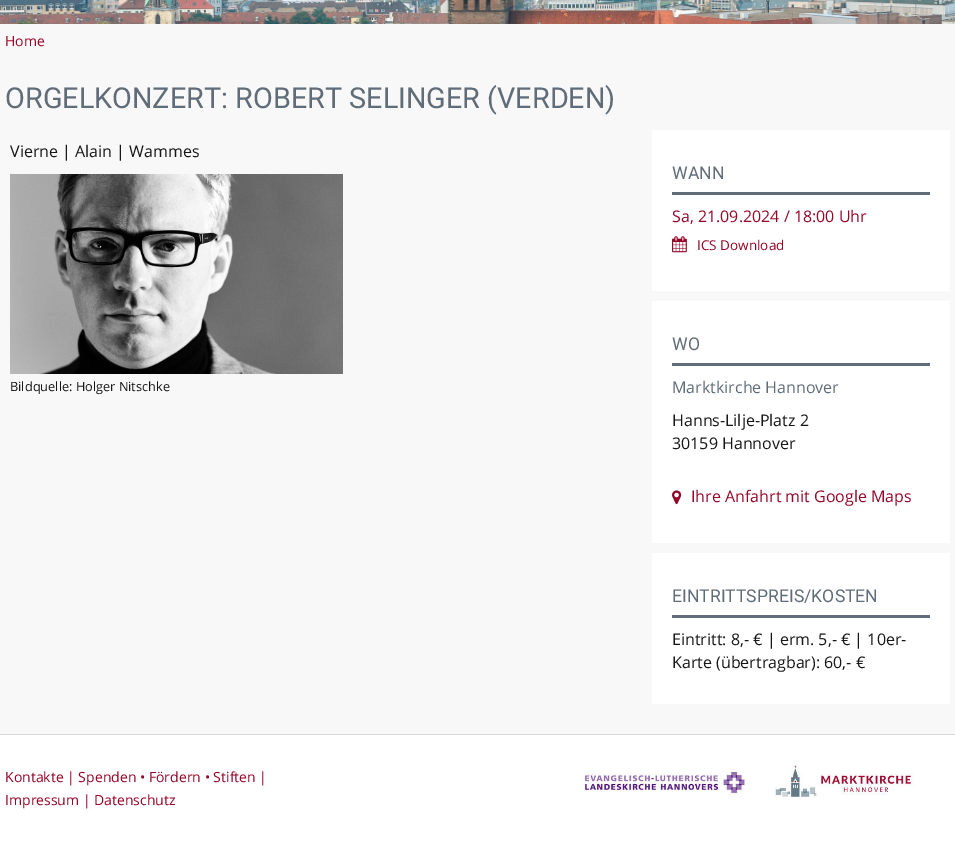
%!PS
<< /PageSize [955 842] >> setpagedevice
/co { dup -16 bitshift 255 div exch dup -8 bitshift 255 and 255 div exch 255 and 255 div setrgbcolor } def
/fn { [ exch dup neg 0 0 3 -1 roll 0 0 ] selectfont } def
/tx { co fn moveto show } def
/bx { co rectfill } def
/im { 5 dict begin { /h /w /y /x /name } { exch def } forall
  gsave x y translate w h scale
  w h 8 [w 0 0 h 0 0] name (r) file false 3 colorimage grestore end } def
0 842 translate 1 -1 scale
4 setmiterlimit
0 0 955 842 16#F8F8F8 bx
(media/1.raw) 0 0 955 24 im
(media/2.raw) 10 174 333 200 im
652 130 298 161 16#FFFFFF bx
672 192 258 3 16#606C77 bx
(media/3.raw) 672 236 15 17 im
652 301 298 242 16#FFFFFF bx
672 363 258 3 16#606C77 bx
(media/4.raw) 672 490 10 15 im
652 553 298 151 16#FFFFFF bx
672 615 258 3 16#606C77 bx
0 735 955 107 16#FFFFFF bx
0 734 955 1 16#D8D8D8 bx
(media/5.raw) 584 769 161 26 im
(media/6.raw) 773 765 141 32 im
(Home) 5 46 /OpenSans-Regular 14 16#950729 tx
(ORGELKONZERT: ROBERT SELINGER \(VERDEN\)) 5 108 /Roboto-Regular 28.8 16#606C77 tx
(Vierne | Alain | Wammes) 10 157 /OpenSans-Regular 16 16#171717 tx
(Bildquelle: Holger Nitschke) 10 391 /OpenSans-Regular 12.75 16#171717 tx
(WANN) 672 179 /Roboto-Regular 17.6 16#606C77 tx
(Sa, 21.09.2024 / 18:00 Uhr) 672 222 /OpenSans-Regular 16 16#950729 tx
(ICS Download) 697 250 /OpenSans-Regular 13.5 16#950729 tx
(WO) 672 350 /Roboto-Regular 17.6 16#606C77 tx
(Marktkirche Hannover) 672 393 /OpenSans-Regular 16 16#606C77 tx
(Hanns-Lilje-Platz 2) 672 426 /OpenSans-Regular 16 16#171717 tx
(30159 Hannover) 672 449 /OpenSans-Regular 16 16#171717 tx
(Ihre Anfahrt mit Google Maps) 691 502 /OpenSans-Regular 16 16#950729 tx
(EINTRITTSPREIS/KOSTEN) 672 602 /Roboto-Regular 17.6 16#606C77 tx
(Eintritt: 8,- € | erm. 5,- € | 10er-) 672 645 /OpenSans-Regular 16 16#171717 tx
(Karte \(übertragbar\): 60,- €) 672 668 /OpenSans-Regular 16 16#171717 tx
(Kontakte | Spenden • Fördern • Stiften |) 5 782 /OpenSans-Regular 14 16#950729 tx
(Impressum | Datenschutz) 5 805 /OpenSans-Regular 14 16#950729 tx
showpage
